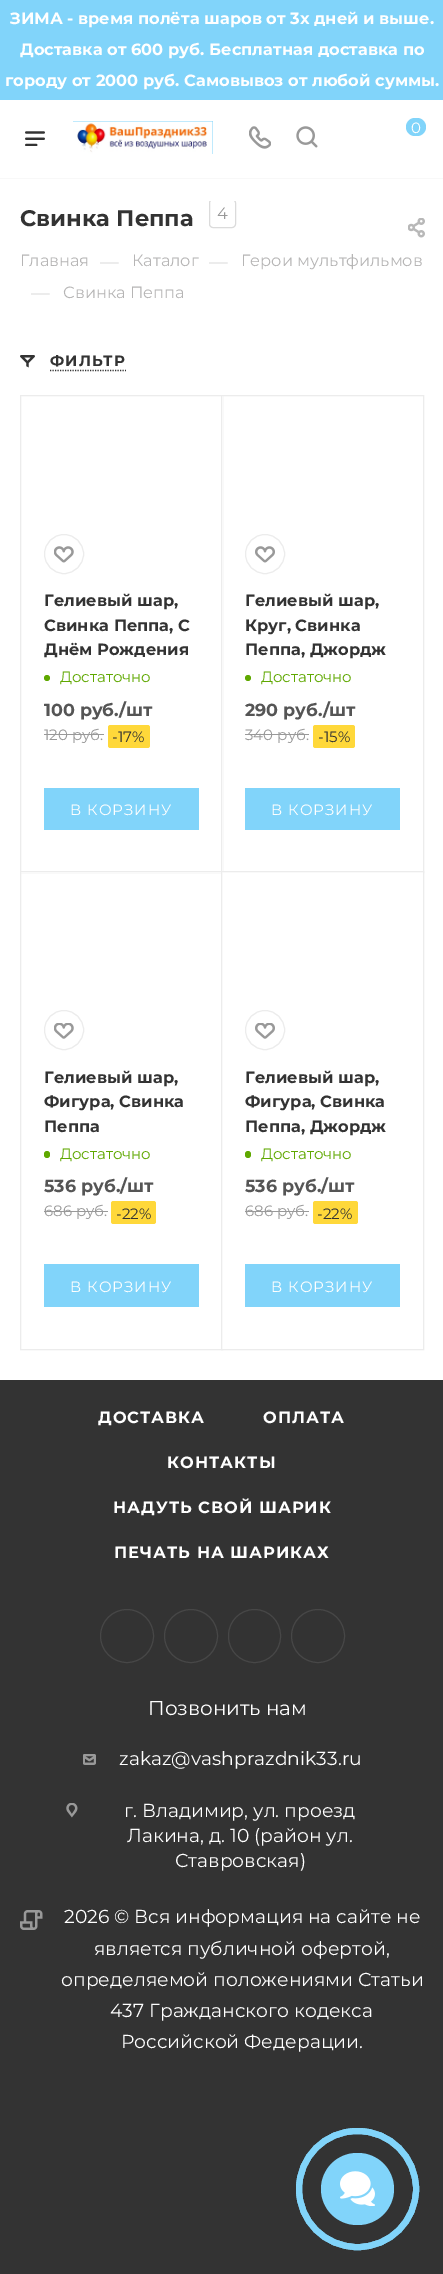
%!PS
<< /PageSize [443 2274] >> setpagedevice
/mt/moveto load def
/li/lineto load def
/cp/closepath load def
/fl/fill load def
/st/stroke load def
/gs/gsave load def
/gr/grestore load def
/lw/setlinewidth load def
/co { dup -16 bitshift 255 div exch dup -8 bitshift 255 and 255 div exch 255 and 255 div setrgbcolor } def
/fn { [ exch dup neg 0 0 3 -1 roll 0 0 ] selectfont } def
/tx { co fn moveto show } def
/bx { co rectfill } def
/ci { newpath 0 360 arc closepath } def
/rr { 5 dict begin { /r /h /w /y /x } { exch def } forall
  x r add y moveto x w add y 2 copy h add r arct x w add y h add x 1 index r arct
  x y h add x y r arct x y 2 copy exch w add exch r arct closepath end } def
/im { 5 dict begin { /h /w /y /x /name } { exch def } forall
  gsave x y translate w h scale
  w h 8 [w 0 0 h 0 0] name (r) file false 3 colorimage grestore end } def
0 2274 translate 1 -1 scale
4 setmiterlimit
0 0 443 2274 16#FFFFFF bx
0 0 443 100 16#81D4FA bx
0 178 443 1 16#F8F8F8 bx
73 121 140 33 16#81D4FA bx
(media/1.raw) 73 121 140 33 im
(media/2.raw) 249 126 22 23 im
(media/3.raw) 296 126 22 22 im
406 118 20 18 9 rr fl
(media/4.raw) 25 131 20 15 im
gs
20 201 346 32 rectclip
16#DBDBDB co
209.5 199.5 26 28 3.5 rr st
gr
(media/5.raw) 408 218 17 20 im
(media/6.raw) 20 355 15 13 im
16#333333 co
1.2 lw
[1.25 1.25] 0 setdash
50 370.5 mt 126 370.5 li st
16#ECECEC co
1 lw
[] 0 setdash
20.5 395.5 202 477 rectstroke
64 554 19.5 ci st
(media/7.raw) 54 546 20 17 im
16#5FA800 co
47 678 3 ci fl
44 734 60 1 16#999999 bx
16#FFD83A co
108 725 42 23 2.5 rr fl
44 788 155 42 16#81D4FA bx
222 396 1 475 16#FFFFFF bx
16#ECECEC co
221.5 395.5 202 477 rectstroke
265 554 19.5 ci st
(media/8.raw) 255 546 20 17 im
16#5FA800 co
248 678 3 ci fl
245 734 64 1 16#999999 bx
16#FFD83A co
313 725 42 23 2.5 rr fl
245 788 155 42 16#81D4FA bx
21 872 200 1 16#FFFFFF bx
16#ECECEC co
20.5 871.5 202 478 rectstroke
64 1030 19.5 ci st
(media/9.raw) 54 1023 20 16 im
16#5FA800 co
44 1151 6 7 3 rr fl
44 1211 64 1 16#999999 bx
16#FFD83A co
111 1201 45 23 2.5 rr fl
44 1264 155 43 16#81D4FA bx
16#FFFFFF co
221.5 871.5 mt 423.5 871.5 li 423.5 1349.5 li 221.5 1349.5 li cp gs fl gr
16#ECECEC co
st
265 1030 19.5 ci st
(media/10.raw) 255 1023 20 16 im
16#5FA800 co
245 1151 6 7 3 rr fl
245 1211 64 1 16#999999 bx
16#FFD83A co
313 1201 45 23 2.5 rr fl
245 1264 155 43 16#81D4FA bx
0 1380 443 894 16#333333 bx
16#474747 co
127 1636 26.5 ci st
191 1636 26.5 ci st
228.5 1609.5 52 53 26 rr st
318 1636 26.5 ci st
(media/11.raw) 83 1754 13 11 im
(media/12.raw) 66 1803 12 15 im
(media/13.raw) 20 1910 23 20 im
16#81D4FA co
321 2153 73 72 36 rr fl
(media/14.raw) 340 2171 35 35 im
6 lw
299 2131 117 116 58 rr st
299 2131 117 116 58 rr st
(ЗИМА - время полёта шаров от 3х дней и выше.) 10 24 /Montserrat-Bold 16.25 16#FFFFFF tx
(Доставка от 600 руб. Бесплатная доставка по) 20 55 /Montserrat-Bold 16.25 16#FFFFFF tx
(городу от 2000 руб. Cамовывоз от любой суммы.) 5 86 /Montserrat-Bold 16.25 16#FFFFFF tx
(0) 411 133 /Montserrat-Regular 15 16#FFFFFF tx
(Свинка Пеппа) 20 226 /Montserrat-Bold 22.5 16#333333 tx
(4) 217 219 /Montserrat-Regular 16.25 16#999999 tx
(Главная) 20 266 /Montserrat-Regular 16.25 16#B6B5B5 tx
(—) 100 268 /Montserrat-Regular 18.75 16#DDDDDD tx
(Каталог) 132 266 /Montserrat-Regular 16.25 16#B6B5B5 tx
(—) 209 268 /Montserrat-Regular 18.75 16#DDDDDD tx
(Герои мультфильмов) 241 266 /Montserrat-Regular 16.25 16#B6B5B5 tx
(—) 31 299 /Montserrat-Regular 18.75 16#DDDDDD tx
(Свинка Пеппа) 63 298 /Montserrat-Regular 16.25 16#B6B5B5 tx
/Montserrat-Bold 15 fn
16#333333 co
50 366 mt 1 0 (ФИЛЬТР) ashow
(Гелиевый шар,) 44 606 /Montserrat-Bold 16.25 16#333333 tx
(Свинка Пеппа, С) 44 631 /Montserrat-Bold 16.25 16#333333 tx
(Днём Рождения) 44 655 /Montserrat-Bold 16.25 16#333333 tx
(Достаточно) 60 682 /Montserrat-Regular 15 16#5FA800 tx
(100 руб./шт) 44 716 /Montserrat-Bold 17.5 16#555555 tx
(120 руб.) 44 740 /Montserrat-Regular 15 16#999999 tx
(-17%) 112 742 /Montserrat-Regular 15 16#333333 tx
16#FFFFFF co
70 815 mt 1 0 (В КОРЗИНУ) ashow
(Гелиевый шар,) 245 606 /Montserrat-Bold 16.25 16#333333 tx
(Круг, Свинка) 245 631 /Montserrat-Bold 16.25 16#333333 tx
(Пеппа, Джордж) 245 655 /Montserrat-Bold 16.25 16#333333 tx
(Достаточно) 261 682 /Montserrat-Regular 15 16#5FA800 tx
(290 руб./шт) 245 716 /Montserrat-Bold 17.5 16#555555 tx
(340 руб.) 245 740 /Montserrat-Regular 15 16#999999 tx
(-15%) 318 742 /Montserrat-Regular 15 16#333333 tx
16#FFFFFF co
271 815 mt 1 0 (В КОРЗИНУ) ashow
(Гелиевый шар,) 44 1083 /Montserrat-Bold 16.25 16#333333 tx
(Фигура, Свинка) 44 1107 /Montserrat-Bold 16.25 16#333333 tx
(Пеппа) 44 1132 /Montserrat-Bold 16.25 16#333333 tx
(Достаточно) 60 1159 /Montserrat-Regular 15 16#5FA800 tx
(536 руб./шт) 44 1192 /Montserrat-Bold 17.5 16#555555 tx
(686 руб.) 44 1216 /Montserrat-Regular 15 16#999999 tx
(-22%) 116 1219 /Montserrat-Regular 15 16#333333 tx
16#FFFFFF co
70 1292 mt 1 0 (В КОРЗИНУ) ashow
(Гелиевый шар,) 245 1083 /Montserrat-Bold 16.25 16#333333 tx
(Фигура, Свинка) 245 1107 /Montserrat-Bold 16.25 16#333333 tx
(Пеппа, Джордж) 245 1132 /Montserrat-Bold 16.25 16#333333 tx
(Достаточно) 261 1159 /Montserrat-Regular 15 16#5FA800 tx
(536 руб./шт) 245 1192 /Montserrat-Bold 17.5 16#555555 tx
(686 руб.) 245 1216 /Montserrat-Regular 15 16#999999 tx
(-22%) 317 1219 /Montserrat-Regular 15 16#333333 tx
16#FFFFFF co
271 1292 mt 1 0 (В КОРЗИНУ) ashow
/Montserrat-Bold 16.25 fn
98 1423 mt 1 0 (ДОСТАВКА) ashow
263 1423 mt 1 0 (ОПЛАТА) ashow
167 1468 mt 1 0 (КОНТАКТЫ) ashow
113 1513 mt 1 0 (НАДУТЬ СВОЙ ШАРИК) ashow
114 1558 mt 1 0 (ПЕЧАТЬ НА ШАРИКАХ) ashow
(Позвонить нам) 148 1715 /Montserrat-Regular 20 16#FFFFFF tx
(zakaz@vashprazdnik33.ru) 119 1765 /Montserrat-Regular 18.75 16#FFFFFF tx
(г. Владимир, ул. проезд) 124 1817 /Montserrat-Regular 18.75 16#FFFFFF tx
(Лакина, д. 10 \(район ул.) 127 1842 /Montserrat-Regular 18.75 16#FFFFFF tx
(Ставровская\)) 175 1867 /Montserrat-Regular 18.75 16#FFFFFF tx
(2026 © Вся информация на сайте не) 64 1923 /Montserrat-Regular 18.75 16#FFFFFF tx
(является публичной офертой,) 94 1955 /Montserrat-Regular 18.75 16#FFFFFF tx
(определяемой положениями Статьи) 61 1986 /Montserrat-Regular 18.75 16#FFFFFF tx
(437 Гражданского кодекса) 110 2017 /Montserrat-Regular 18.75 16#FFFFFF tx
(Российской Федерации.) 121 2048 /Montserrat-Regular 18.75 16#FFFFFF tx
showpage
